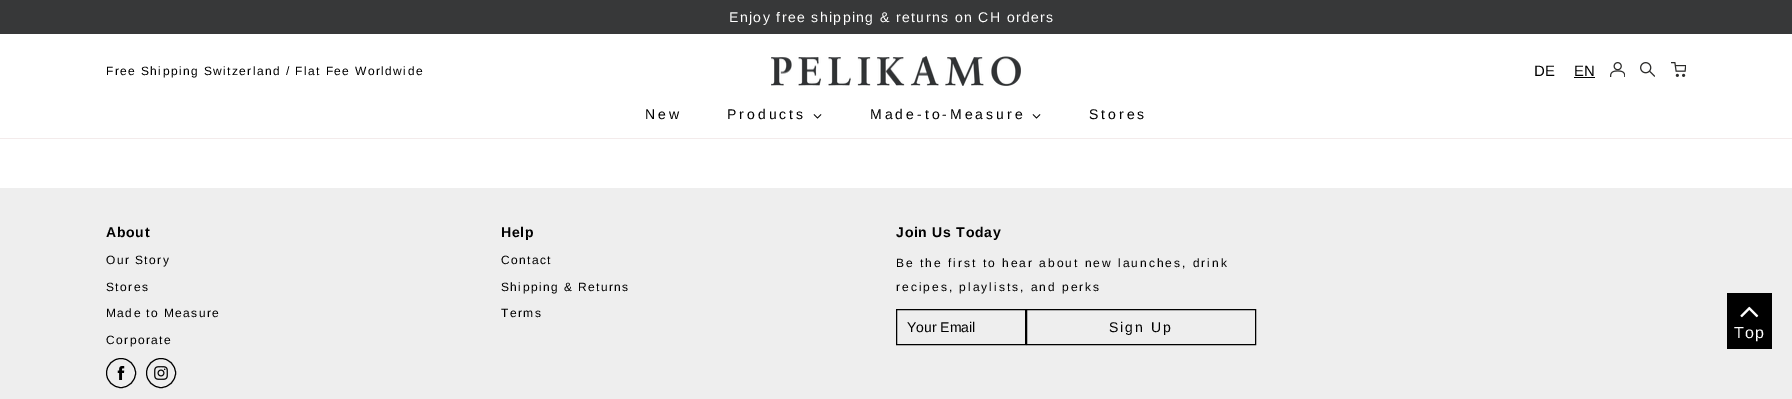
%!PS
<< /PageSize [1792 399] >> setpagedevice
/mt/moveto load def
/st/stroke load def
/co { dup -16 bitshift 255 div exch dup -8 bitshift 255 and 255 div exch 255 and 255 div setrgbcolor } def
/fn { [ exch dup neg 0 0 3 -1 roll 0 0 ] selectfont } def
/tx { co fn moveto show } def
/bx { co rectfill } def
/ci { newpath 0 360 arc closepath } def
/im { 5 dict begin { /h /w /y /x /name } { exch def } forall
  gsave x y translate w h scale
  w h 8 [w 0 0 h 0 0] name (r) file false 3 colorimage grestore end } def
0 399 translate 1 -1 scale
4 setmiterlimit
0 0 1792 399 16#FFFFFF bx
0 138 1792 1 16#F3EBEB bx
0 0 1792 34 16#373839 bx
(media/1.raw) 771 56 250 30 im
1574 77 21 1 16#000000 bx
(media/2.raw) 1610 62 15 15 im
(media/3.raw) 1640 62 15 15 im
(media/4.raw) 1671 62 15 15 im
(media/5.raw) 813 114 9 5 im
(media/5.raw) 1032 114 9 5 im
0 188 1792 211 16#EEEEEE bx
16#000000 co
121 373 14.5 ci st
(media/6.raw) 117 366 8 14 im
161 373 14.5 ci st
(media/7.raw) 154 366 14 14 im
896.5 309.5 129 35 rectstroke
1026.5 309.5 229 35 rectstroke
1727 293 45 56 16#000000 bx
(media/8.raw) 1740 306 19 12 im
/LiberationSans-Regular 14 fn
16#FFFFFF co
729 22 mt 1.4 0 (Enjoy free shipping & returns on CH orders) ashow
/LiberationSans-Regular 12 fn
16#000000 co
106 75 mt 1.4 0 (Free Shipping Switzerland / Flat Fee Worldwide) ashow
(DE) 1534 76 /LiberationSans-Regular 15 16#000000 tx
(EN) 1574 76 /LiberationSans-Regular 15 16#000000 tx
/LiberationSans-Regular 14 fn
645 119 mt 3 0 (New) ashow
727 119 mt 3 0 (Products) ashow
870 119 mt 3 0 (Made-to-Measure) ashow
1089 119 mt 3 0 (Stores) ashow
/LiberationSans-Bold 14 fn
106 237 mt .75 0 (About) ashow
/LiberationSans-Regular 12 fn
106 264 mt 1.4 0 (Our Story) ashow
106 291 mt 1.4 0 (Stores) ashow
106 317 mt 1.4 0 (Made to Measure) ashow
106 344 mt 1.4 0 (Corporate) ashow
/LiberationSans-Bold 14 fn
501 237 mt .75 0 (Help) ashow
/LiberationSans-Regular 12 fn
501 264 mt 1.4 0 (Contact) ashow
501 291 mt 1.4 0 (Shipping & Returns) ashow
501 317 mt 1.4 0 (Terms) ashow
/LiberationSans-Bold 14 fn
896 237 mt .75 0 (Join Us Today) ashow
/LiberationSans-Regular 12 fn
896 267 mt 2 0 (Be the first to hear about new launches, drink) ashow
896 291 mt 2 0 (recipes, playlists, and perks) ashow
(Your Email) 907 332 /LiberationSans-Regular 14 16#000000 tx
1109 332 mt 2 0 (Sign Up) ashow
/LiberationSans-Regular 16 fn
16#FFFFFF co
1734 338 mt 1.4 0 (Top) ashow
showpage
